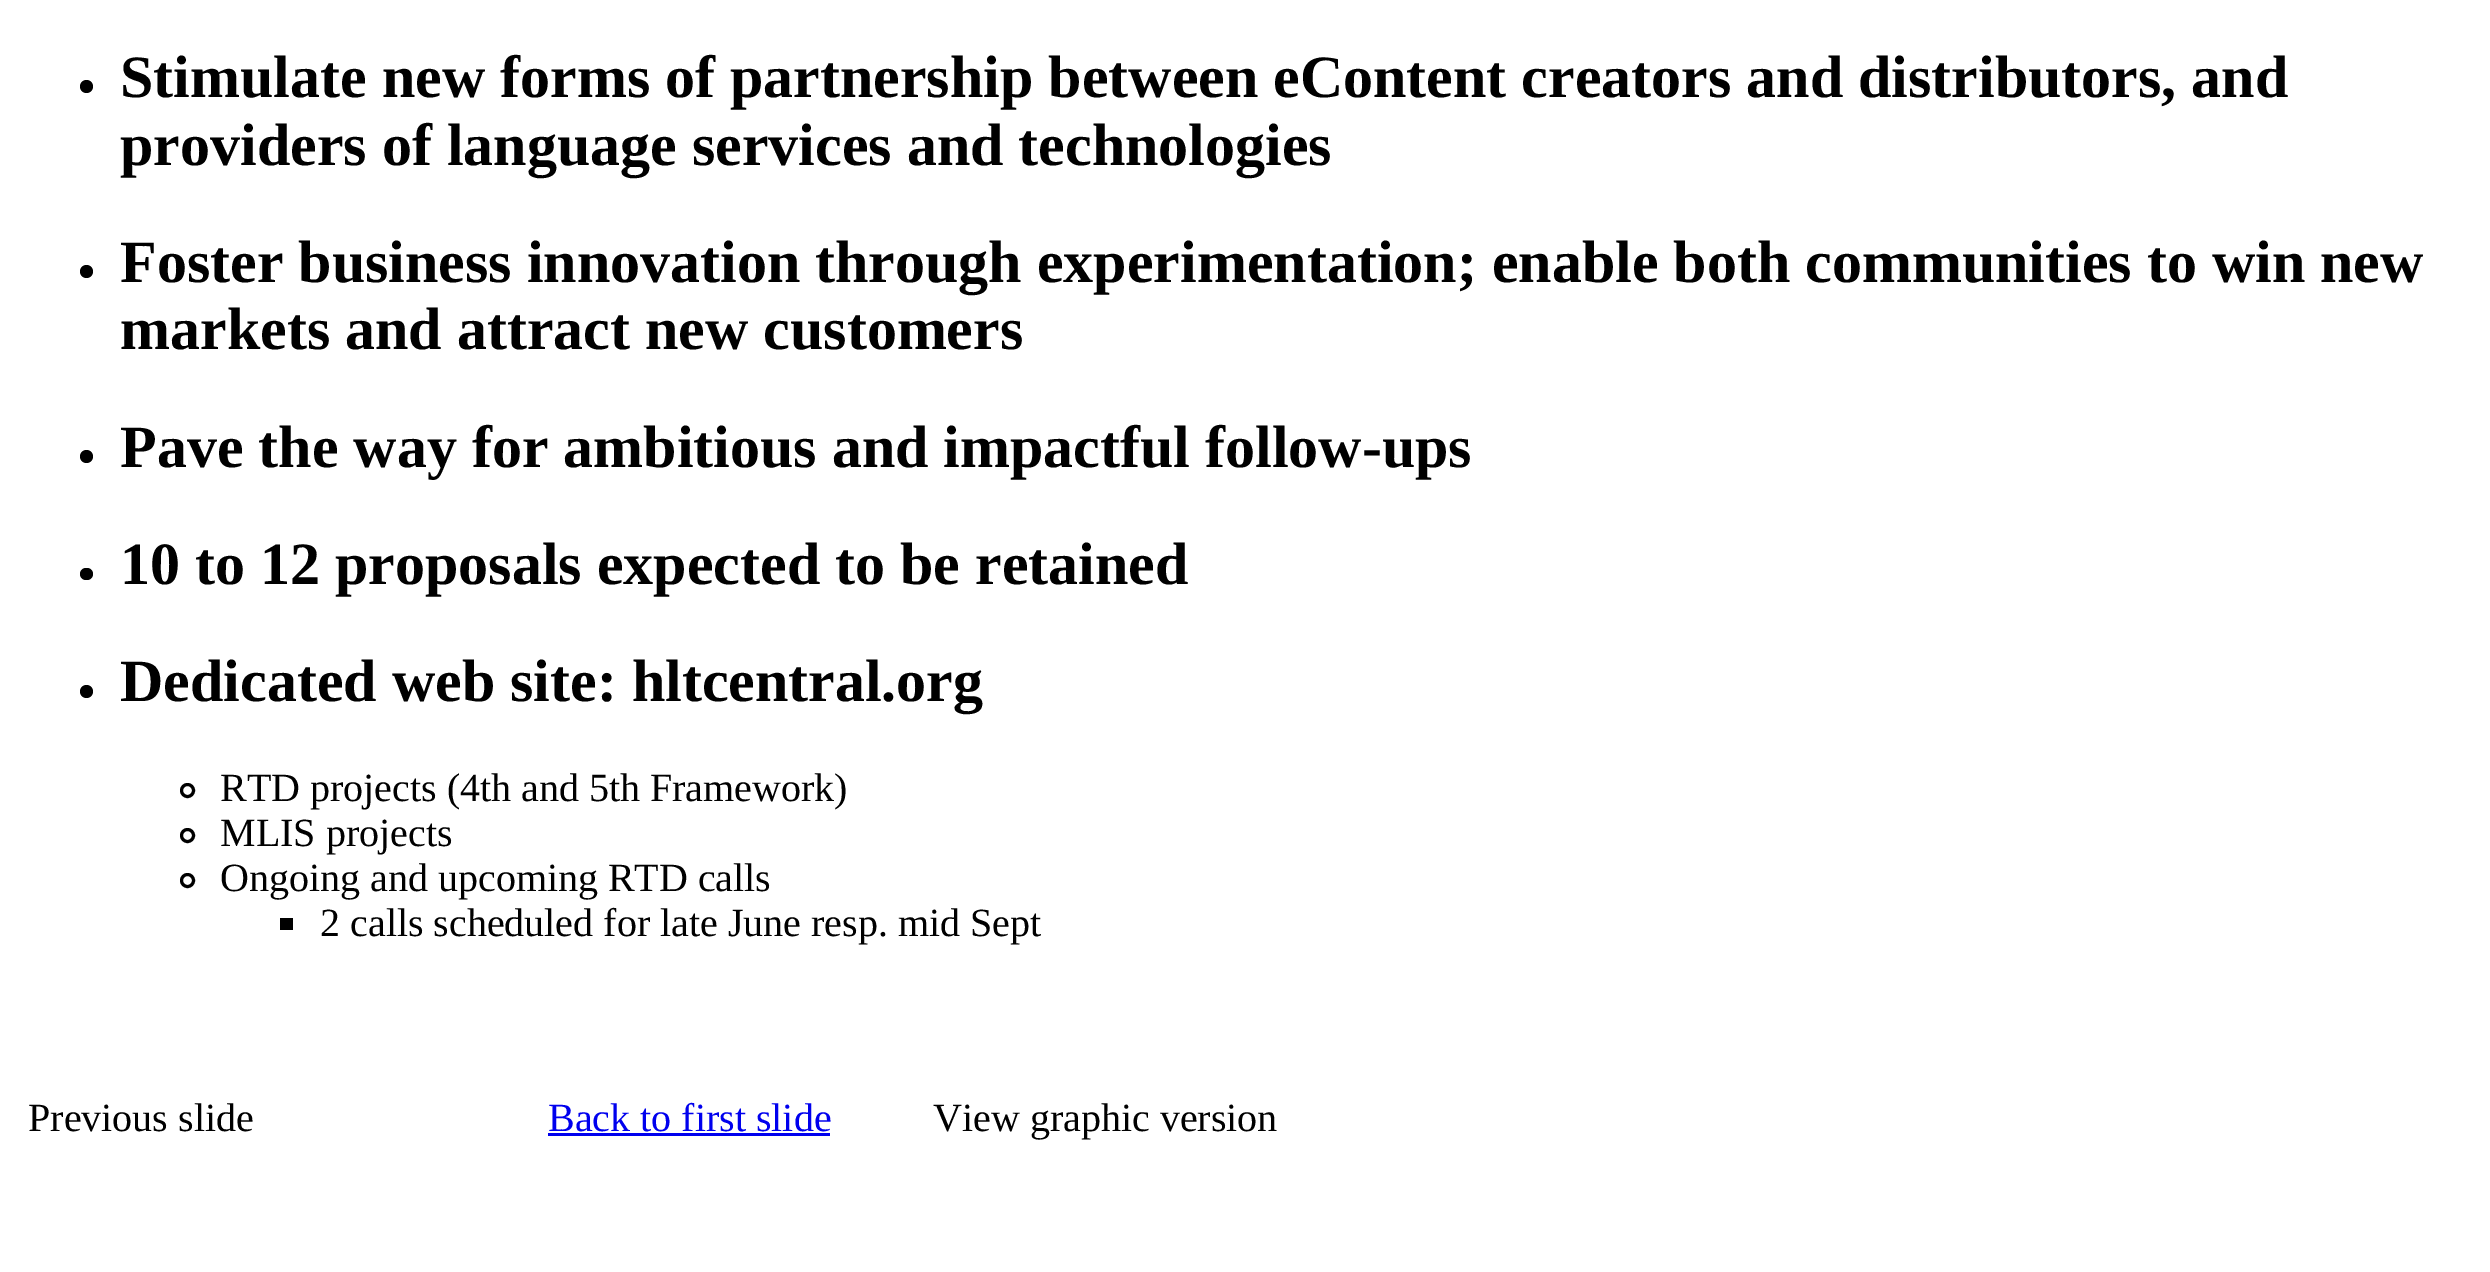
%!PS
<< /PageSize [2490 1272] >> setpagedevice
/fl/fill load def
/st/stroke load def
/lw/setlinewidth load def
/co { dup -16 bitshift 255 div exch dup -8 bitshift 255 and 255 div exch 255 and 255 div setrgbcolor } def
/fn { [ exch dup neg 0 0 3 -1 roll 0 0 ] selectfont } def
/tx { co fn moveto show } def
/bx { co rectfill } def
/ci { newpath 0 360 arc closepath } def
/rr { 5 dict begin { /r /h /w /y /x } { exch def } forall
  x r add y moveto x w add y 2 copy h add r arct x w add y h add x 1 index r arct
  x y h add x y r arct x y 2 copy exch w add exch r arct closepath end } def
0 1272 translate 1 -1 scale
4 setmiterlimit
0 0 2490 1272 16#FFFFFF bx
16#000000 co
86.5 86.5 6.5 ci fl
86.5 271.5 6.5 ci fl
86.5 456.5 6.5 ci fl
80 568 13 12 6 rr fl
86.5 691.5 6.5 ci fl
3 lw
187.5 790.5 6 ci st
187.5 835.5 6 ci st
187.5 880.5 6 ci st
280 918 13 12 16#000000 bx
548 1133 282 3 16#0000EE bx
(Stimulate new forms of partnership between eContent creators and distributors, and) 120 97 /LiberationSerif-Bold 60 16#000000 tx
(providers of language services and technologies) 120 165 /LiberationSerif-Bold 60 16#000000 tx
(Foster business innovation through experimentation; enable both communities to win new) 120 282 /LiberationSerif-Bold 60 16#000000 tx
(markets and attract new customers) 120 349 /LiberationSerif-Bold 60 16#000000 tx
(Pave the way for ambitious and impactful follow-ups) 120 467 /LiberationSerif-Bold 60 16#000000 tx
(10 to 12 proposals expected to be retained) 120 584 /LiberationSerif-Bold 60 16#000000 tx
(Dedicated web site: hltcentral.org) 120 701 /LiberationSerif-Bold 60 16#000000 tx
(RTD projects \(4th and 5th Framework\)) 220 801 /LiberationSerif-Regular 40 16#000000 tx
(MLIS projects) 220 846 /LiberationSerif-Regular 40 16#000000 tx
(Ongoing and upcoming RTD calls) 220 891 /LiberationSerif-Regular 40 16#000000 tx
(2 calls scheduled for late June resp. mid Sept) 320 936 /LiberationSerif-Regular 40 16#000000 tx
(Previous slide) 28 1131 /LiberationSerif-Regular 40 16#000000 tx
(Back to first slide) 548 1131 /LiberationSerif-Regular 40 16#0000EE tx
(View graphic version) 933 1131 /LiberationSerif-Regular 40 16#000000 tx
showpage
